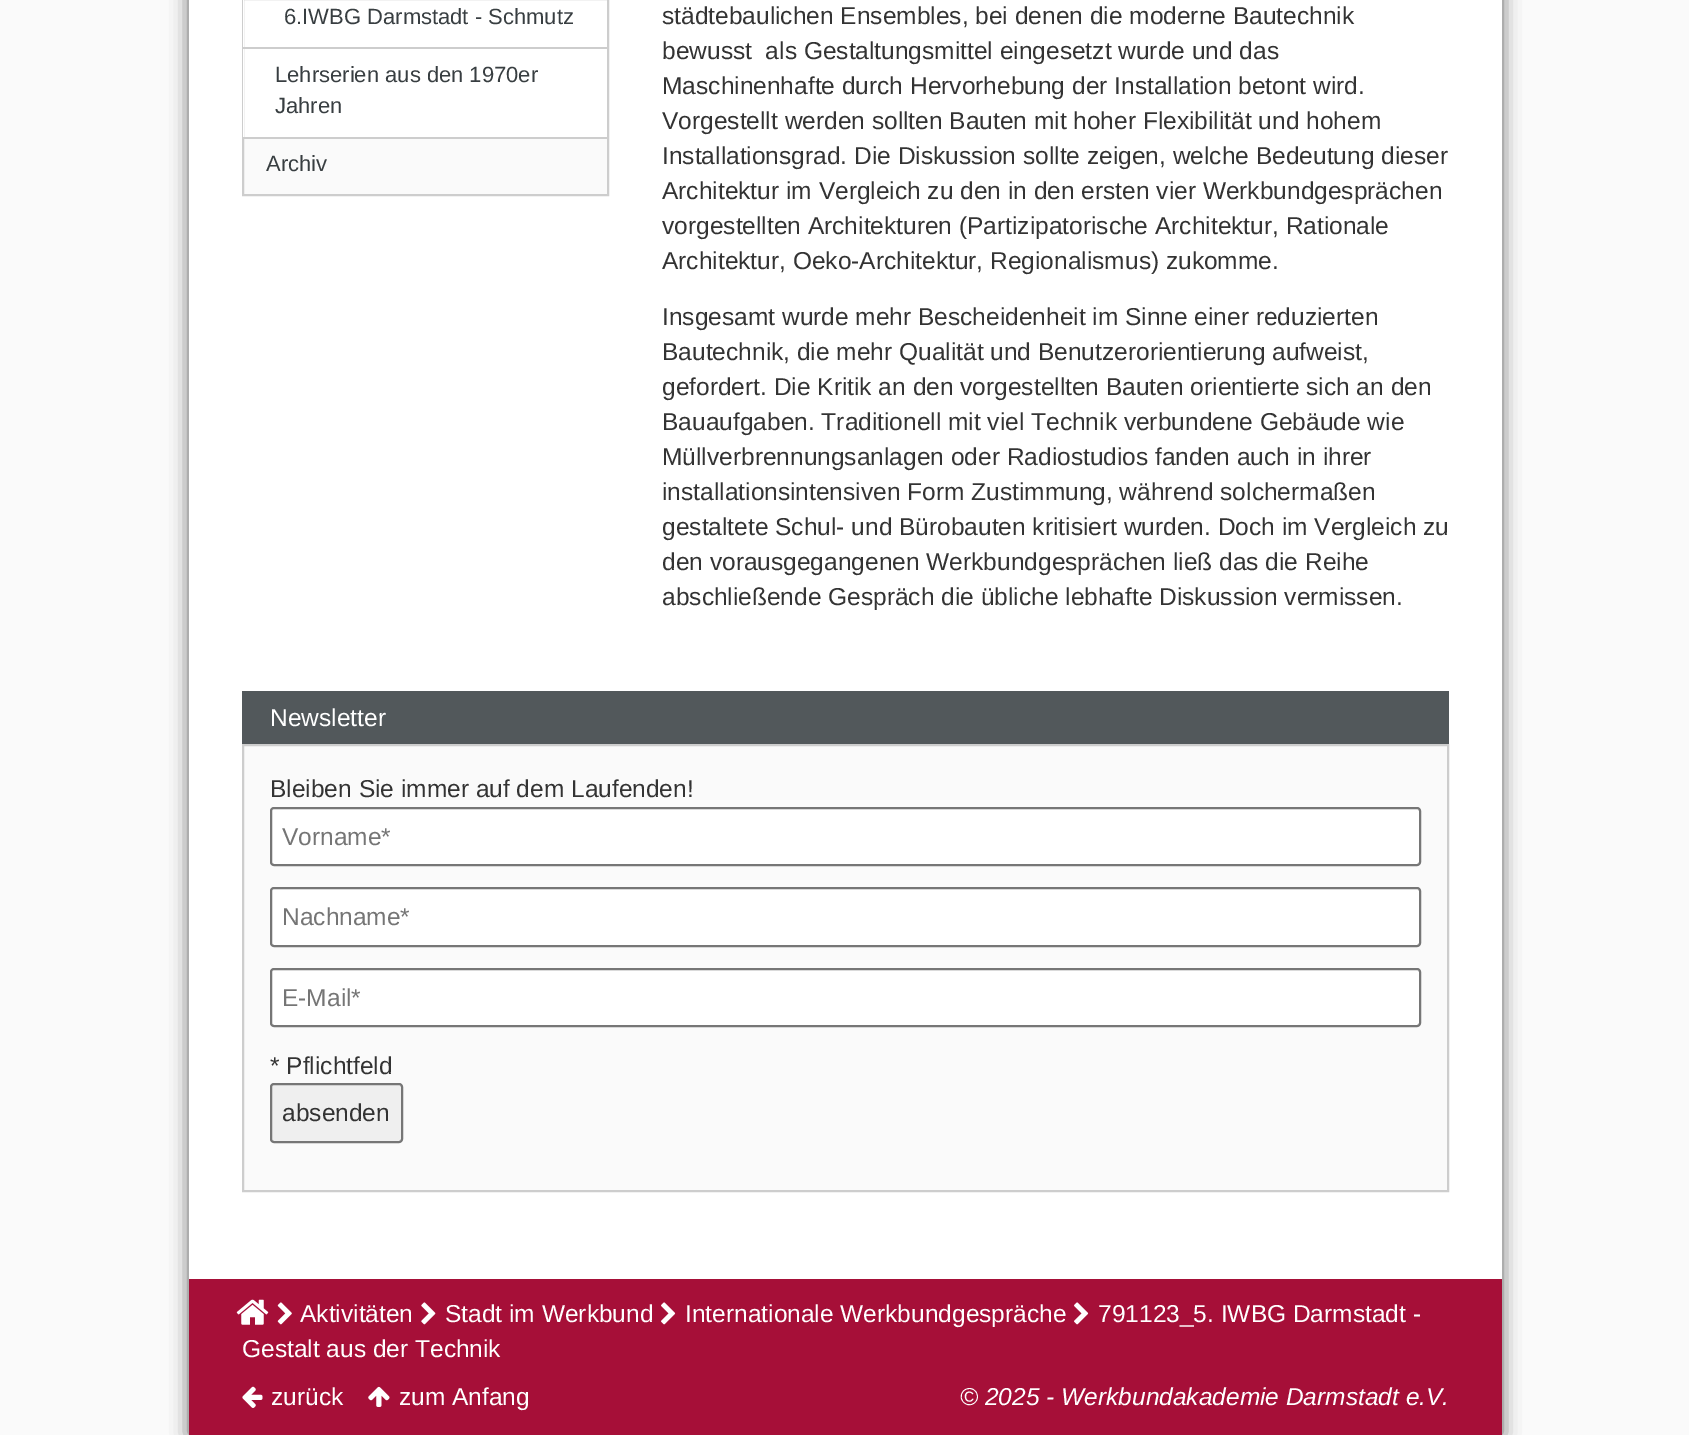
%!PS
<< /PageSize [1689 1435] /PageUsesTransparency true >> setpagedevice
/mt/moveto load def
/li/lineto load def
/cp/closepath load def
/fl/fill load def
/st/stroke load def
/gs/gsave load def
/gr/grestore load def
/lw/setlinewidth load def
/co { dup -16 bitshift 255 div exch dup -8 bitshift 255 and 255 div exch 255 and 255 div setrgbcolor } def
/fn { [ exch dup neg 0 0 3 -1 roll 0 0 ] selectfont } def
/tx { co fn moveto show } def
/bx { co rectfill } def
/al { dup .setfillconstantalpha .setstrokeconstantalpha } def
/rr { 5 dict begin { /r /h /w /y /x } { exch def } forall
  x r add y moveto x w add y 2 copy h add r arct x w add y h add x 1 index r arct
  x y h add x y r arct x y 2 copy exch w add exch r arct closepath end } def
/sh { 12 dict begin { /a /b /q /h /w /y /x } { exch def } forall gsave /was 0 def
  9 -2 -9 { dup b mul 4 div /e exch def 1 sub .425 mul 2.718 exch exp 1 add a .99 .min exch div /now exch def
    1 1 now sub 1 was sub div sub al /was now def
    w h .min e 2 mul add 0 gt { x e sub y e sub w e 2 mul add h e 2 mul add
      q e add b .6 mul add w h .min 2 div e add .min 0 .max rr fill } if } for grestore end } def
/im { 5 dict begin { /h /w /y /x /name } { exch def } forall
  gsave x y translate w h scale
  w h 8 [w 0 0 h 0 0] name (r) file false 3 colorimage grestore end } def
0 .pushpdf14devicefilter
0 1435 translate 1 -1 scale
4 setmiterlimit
0 0 1689 1435 16#FAFAFA bx
16#5D5D5D co
189 -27 1313 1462 0 9 1 sh
189 0 1313 1279 16#FFFFFF bx
244 139 363 55 16#FAFAFA bx
16#CDCDCD co
2 lw
243 -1 365 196 rectstroke
243 0 1 137 16#FFFFFF bx
243 47 364 2 16#CDCDCD bx
243 137 364 2 16#CDCDCD bx
242 691 1207 53 16#52585B bx
16#FAFAFA co
243 745 mt 1448 745 li 1448 1191 li 243 1191 li cp gs fl gr
16#CDCDCD co
st
16#FFFFFF co
271 808 1149 57 3 rr gs fl gr
16#767676 co
st
16#FFFFFF co
271 888 1149 58 3 rr gs fl gr
16#767676 co
st
16#FFFFFF co
271 969 1149 57 3 rr gs fl gr
16#767676 co
st
16#EFEFEF co
271 1084 131 58 3 rr gs fl gr
16#767676 co
st
189 1279 1313 156 16#A60F38 bx
(media/1.raw) 236 1299 33 26 im
(media/2.raw) 277 1302 15 23 im
(media/3.raw) 421 1302 15 23 im
(media/4.raw) 661 1302 15 23 im
(media/4.raw) 1074 1302 15 23 im
(media/5.raw) 242 1386 21 22 im
(media/6.raw) 368 1386 22 21 im
(6.IWBG Darmstadt - Schmutz) 284 24 /LiberationSans-Regular 22 16#383E41 tx
(Lehrserien aus den 1970er) 275 82 /LiberationSans-Regular 22 16#383E41 tx
(Jahren) 275 113 /LiberationSans-Regular 22 16#383E41 tx
(Archiv) 266 171 /LiberationSans-Regular 22 16#383E41 tx
(städtebaulichen Ensembles, bei denen die moderne Bautechnik) 662 24 /LiberationSans-Regular 24.5 16#333333 tx
(bewusst  als Gestaltungsmittel eingesetzt wurde und das) 662 59 /LiberationSans-Regular 24.5 16#333333 tx
(Maschinenhafte durch Hervorhebung der Installation betont wird.) 662 94 /LiberationSans-Regular 24.5 16#333333 tx
(Vorgestellt werden sollten Bauten mit hoher Flexibilität und hohem) 662 129 /LiberationSans-Regular 24.5 16#333333 tx
(Installationsgrad. Die Diskussion sollte zeigen, welche Bedeutung dieser) 662 164 /LiberationSans-Regular 24.5 16#333333 tx
(Architektur im Vergleich zu den in den ersten vier Werkbundgesprächen) 662 199 /LiberationSans-Regular 24.5 16#333333 tx
(vorgestellten Architekturen \(Partizipatorische Architektur, Rationale) 662 234 /LiberationSans-Regular 24.5 16#333333 tx
(Architektur, Oeko-Architektur, Regionalismus\) zukomme.) 662 269 /LiberationSans-Regular 24.5 16#333333 tx
(Insgesamt wurde mehr Bescheidenheit im Sinne einer reduzierten) 662 325 /LiberationSans-Regular 24.5 16#333333 tx
(Bautechnik, die mehr Qualität und Benutzerorientierung aufweist,) 662 360 /LiberationSans-Regular 24.5 16#333333 tx
(gefordert. Die Kritik an den vorgestellten Bauten orientierte sich an den) 662 395 /LiberationSans-Regular 24.5 16#333333 tx
(Bauaufgaben. Traditionell mit viel Technik verbundene Gebäude wie) 662 430 /LiberationSans-Regular 24.5 16#333333 tx
(Müllverbrennungsanlagen oder Radiostudios fanden auch in ihrer) 662 465 /LiberationSans-Regular 24.5 16#333333 tx
(installationsintensiven Form Zustimmung, während solchermaßen) 662 500 /LiberationSans-Regular 24.5 16#333333 tx
(gestaltete Schul- und Bürobauten kritisiert wurden. Doch im Vergleich zu) 662 535 /LiberationSans-Regular 24.5 16#333333 tx
(den vorausgegangenen Werkbundgesprächen ließ das die Reihe) 662 570 /LiberationSans-Regular 24.5 16#333333 tx
(abschließende Gespräch die übliche lebhafte Diskussion vermissen.) 662 605 /LiberationSans-Regular 24.5 16#333333 tx
(Newsletter) 270 726 /LiberationSans-Regular 24.5 16#FFFFFF tx
(Bleiben Sie immer auf dem Laufenden!) 270 797 /LiberationSans-Regular 24.5 16#333333 tx
(Vorname*) 282 845 /LiberationSans-Regular 24.5 16#757575 tx
(Nachname*) 282 925 /LiberationSans-Regular 24.5 16#757575 tx
(E-Mail*) 282 1006 /LiberationSans-Regular 24.5 16#757575 tx
(* Pflichtfeld) 270 1074 /LiberationSans-Regular 24.5 16#333333 tx
(absenden) 282 1121 /LiberationSans-Regular 24.5 16#333333 tx
(Aktivitäten) 300 1322 /LiberationSans-Regular 24.5 16#FFFFFF tx
(Stadt im Werkbund) 445 1322 /LiberationSans-Regular 24.5 16#FFFFFF tx
(Internationale Werkbundgespräche) 685 1322 /LiberationSans-Regular 24.5 16#FFFFFF tx
(791123_5. IWBG Darmstadt -) 1098 1322 /LiberationSans-Regular 24.5 16#FFFFFF tx
(Gestalt aus der Technik) 242 1357 /LiberationSans-Regular 24.5 16#FFFFFF tx
(zurück) 271 1405 /LiberationSans-Regular 24.5 16#FFFFFF tx
(zum Anfang) 399 1405 /LiberationSans-Regular 24.5 16#FFFFFF tx
(© 2025 - Werkbundakademie Darmstadt e.V.) 960 1405 /LiberationSans-Italic 24.5 16#FFFFFF tx
.poppdf14devicefilter showpage
